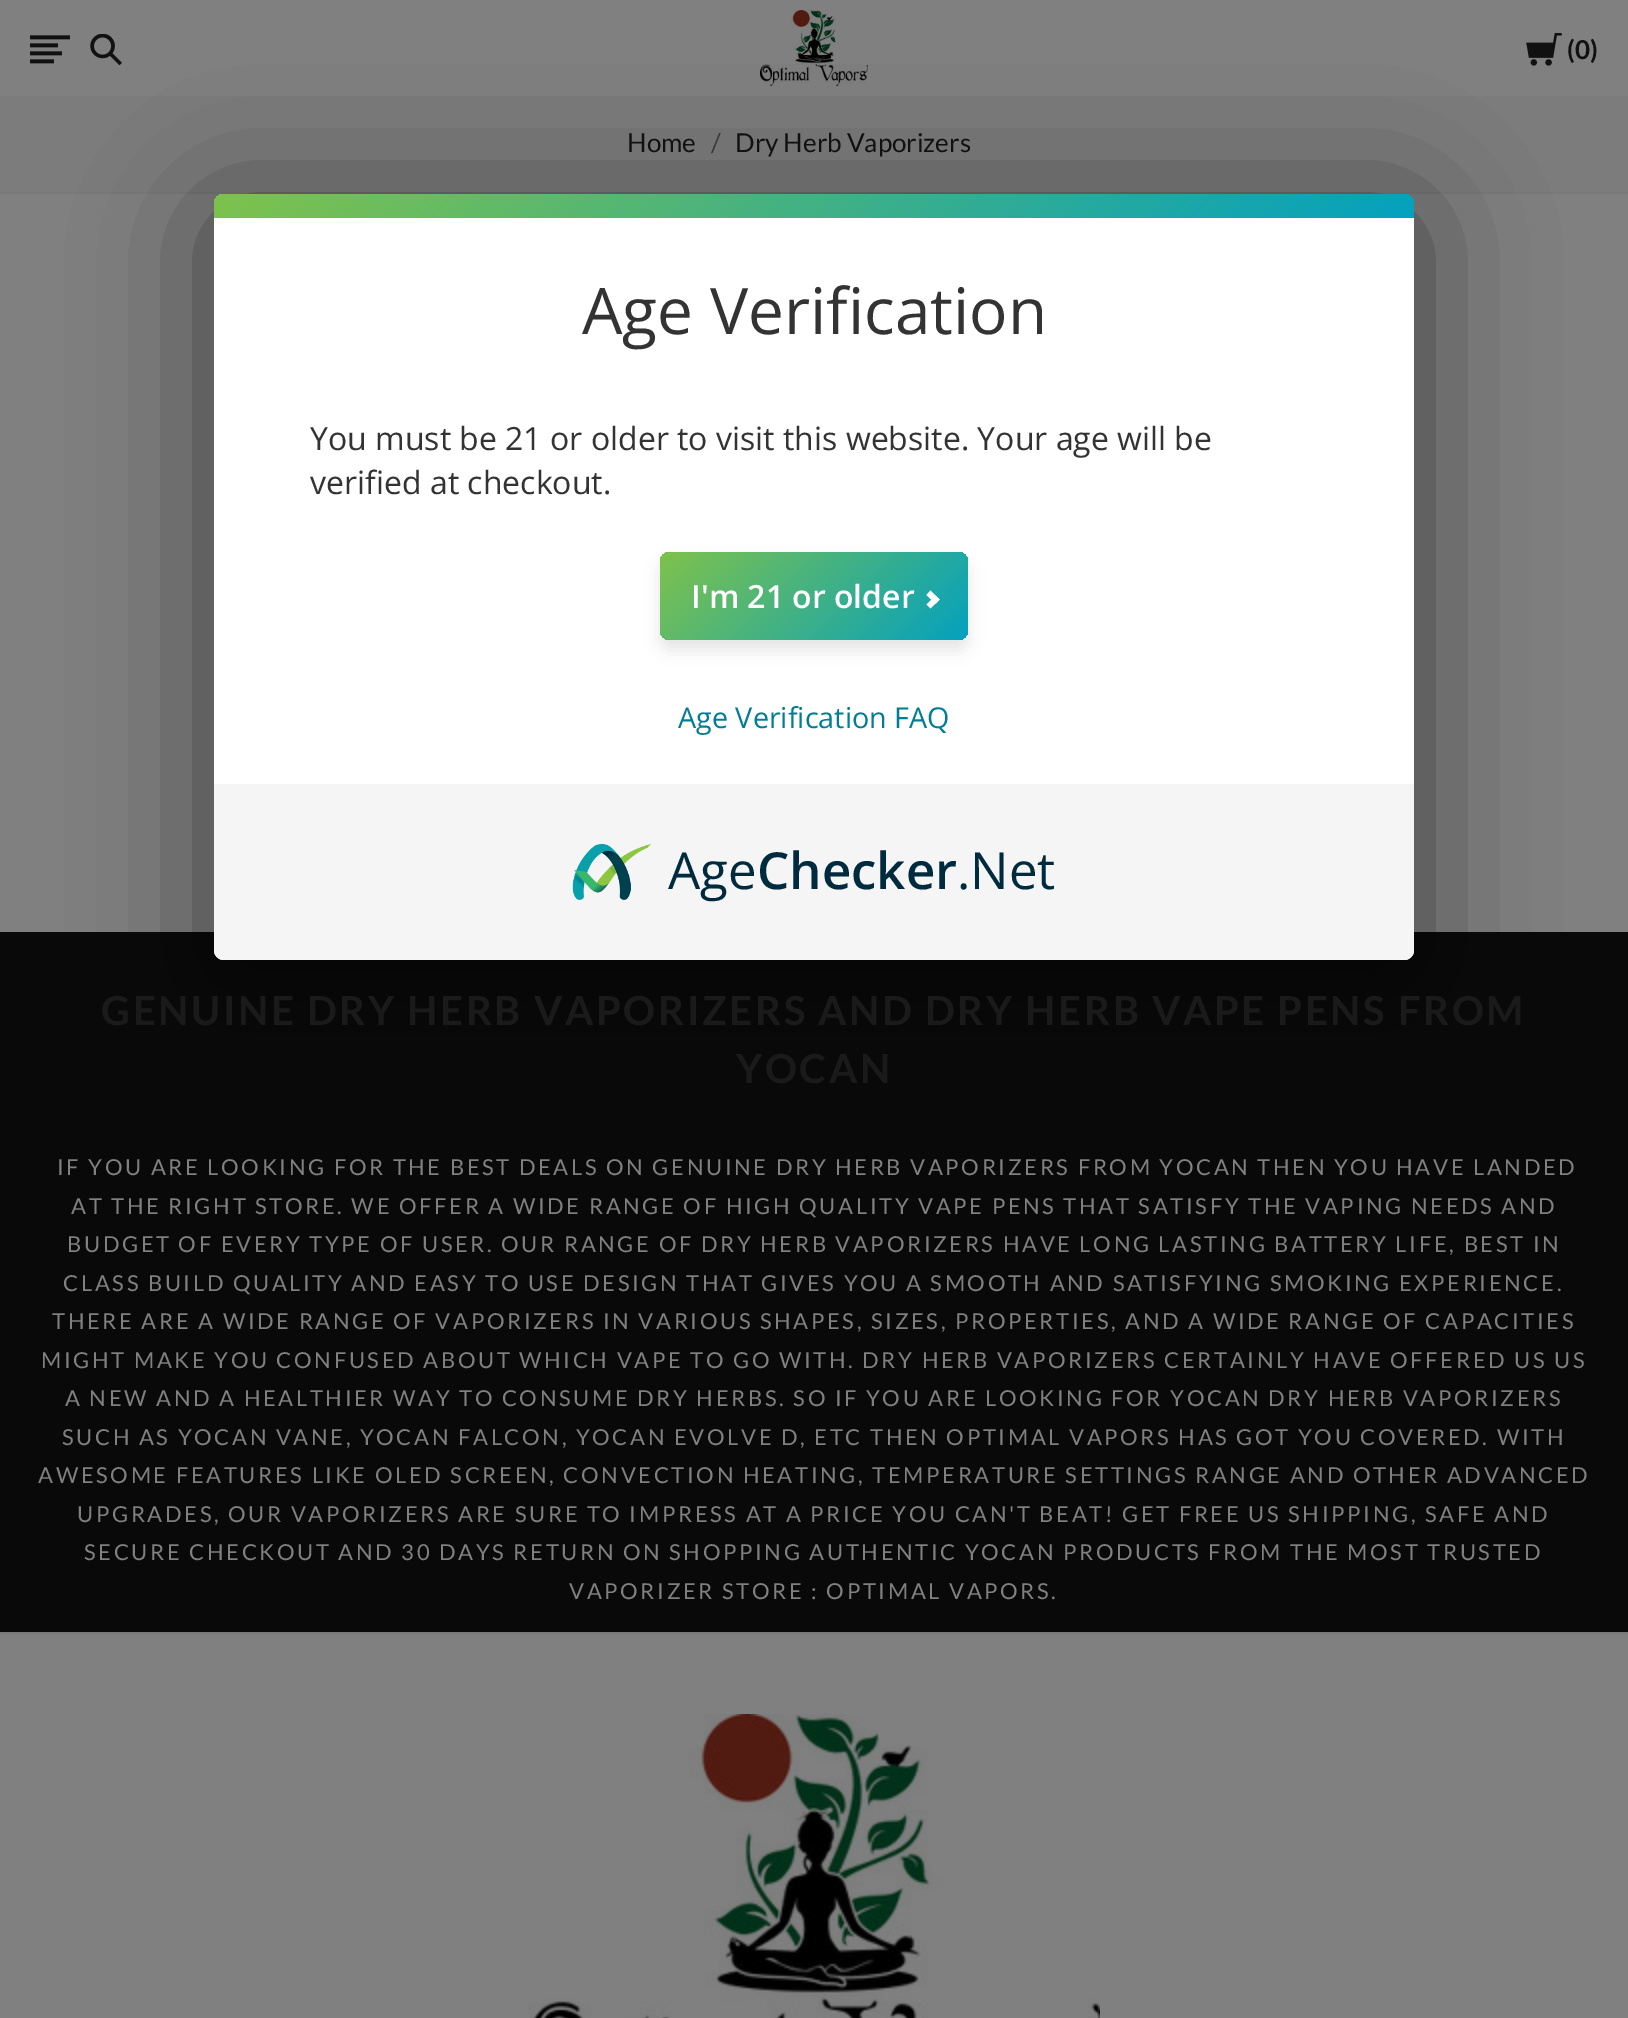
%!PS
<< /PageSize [1628 2018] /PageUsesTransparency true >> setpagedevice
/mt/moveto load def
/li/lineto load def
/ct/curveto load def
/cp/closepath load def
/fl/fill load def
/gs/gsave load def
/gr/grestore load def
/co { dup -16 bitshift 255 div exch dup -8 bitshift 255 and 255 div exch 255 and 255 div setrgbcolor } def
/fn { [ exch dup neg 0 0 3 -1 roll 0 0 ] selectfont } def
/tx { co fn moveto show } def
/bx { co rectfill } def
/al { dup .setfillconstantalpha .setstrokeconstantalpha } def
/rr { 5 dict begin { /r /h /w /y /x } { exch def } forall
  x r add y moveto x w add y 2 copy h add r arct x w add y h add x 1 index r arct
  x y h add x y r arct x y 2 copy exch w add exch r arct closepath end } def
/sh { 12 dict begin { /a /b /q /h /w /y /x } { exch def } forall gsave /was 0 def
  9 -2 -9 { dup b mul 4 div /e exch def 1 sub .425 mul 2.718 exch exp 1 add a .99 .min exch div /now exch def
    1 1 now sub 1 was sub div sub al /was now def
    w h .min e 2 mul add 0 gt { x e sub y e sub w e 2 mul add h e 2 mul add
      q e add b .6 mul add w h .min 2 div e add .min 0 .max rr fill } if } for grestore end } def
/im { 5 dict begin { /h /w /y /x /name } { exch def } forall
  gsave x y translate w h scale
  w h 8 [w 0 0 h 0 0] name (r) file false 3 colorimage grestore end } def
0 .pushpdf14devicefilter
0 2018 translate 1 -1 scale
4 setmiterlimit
0 0 1628 2018 16#808080 bx
(media/1.raw) 760 10 108 76 im
(media/2.raw) 30 35 40 29 im
(media/3.raw) 90 34 32 31 im
(media/4.raw) 1526 33 36 33 im
0 96 1628 96 16#7C7C7C bx
0 192 1628 2 16#797979 bx
0 932 1628 700 16#090909 bx
0 1632 1628 2 16#797979 bx
(media/5.raw) 528 1714 572 304 im
16#000000 co
208 208 1212 778 16 64 .5 sh
16#FFFFFF co
214 194 1200 766 10 rr fl
gs 224 194 mt 1404 194 li 1409.5 194 1414 198.5 1414 204 ct 1414 218 li 214 218 li 214 204 li 214 198.5 218.5 194 224 194 ct cp clip newpath
<< /ShadingType 2 /ColorSpace /DeviceRGB /Coords [508 -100 1120 512] /Extend [true true] /Function << /FunctionType 2 /Domain [0 1] /C0 [.498 .761 .298] /C1 [.016 .631 .749] /N 1 >> >> shfill gr
16#000000 co
660 562 308 88 10 8 .1 sh
gs 660 552 308 88 10 rr clip newpath
<< /ShadingType 2 /ColorSpace /DeviceRGB /Coords [715 497 913 695] /Extend [true true] /Function << /FunctionType 2 /Domain [0 1] /C0 [.498 .761 .298] /C1 [.016 .631 .749] /N 1 >> >> shfill gr
16#FFFFFF co
926.5 595 mt 930.5 590.5 li 939.5 599.5 li 935.5 604 li cp fl
926.5 604.5 mt 935.5 595.5 li 939.5 599.5 li 930.5 608.5 li cp fl
16#F5F5F5 co
214 784 mt 1414 784 li 1414 950 li 1414 955.5 1409.5 960 1404 960 ct 224 960 li 218.5 960 214 955.5 214 950 ct cp fl
(media/6.raw) 572 844 79 56 im
(\(0\)) 1567 59 /Lato-Bold 26 16#111111 tx
(Home) 627 152 /Lato-Regular 26 16#111111 tx
(/) 711 152 /Lato-Regular 26 16#3C3C3C tx
(Dry Herb Vaporizers) 735 152 /Lato-Regular 26 16#111111 tx
/Lato-Bold 40 fn
16#1A1A1A co
101 1025 mt 2.64 0 (GENUINE DRY HERB VAPORIZERS AND DRY HERB VAPE PENS FROM) ashow
736 1083 mt 2.64 0 (YOCAN) ashow
/Lato-Regular 22 fn
16#808080 co
57 1175 mt 2.64 0 (IF YOU ARE LOOKING FOR THE BEST DEALS ON GENUINE DRY HERB VAPORIZERS FROM YOCAN THEN YOU HAVE LANDED) ashow
71 1214 mt 2.64 0 (AT THE RIGHT STORE. WE OFFER A WIDE RANGE OF HIGH QUALITY VAPE PENS THAT SATISFY THE VAPING NEEDS AND) ashow
67 1252 mt 2.64 0 (BUDGET OF EVERY TYPE OF USER. OUR RANGE OF DRY HERB VAPORIZERS HAVE LONG LASTING BATTERY LIFE, BEST IN) ashow
63 1291 mt 2.64 0 (CLASS BUILD QUALITY AND EASY TO USE DESIGN THAT GIVES YOU A SMOOTH AND SATISFYING SMOKING EXPERIENCE.) ashow
52 1329 mt 2.64 0 (THERE ARE A WIDE RANGE OF VAPORIZERS IN VARIOUS SHAPES, SIZES, PROPERTIES, AND A WIDE RANGE OF CAPACITIES) ashow
41 1368 mt 2.64 0 (MIGHT MAKE YOU CONFUSED ABOUT WHICH VAPE TO GO WITH. DRY HERB VAPORIZERS CERTAINLY HAVE OFFERED US US) ashow
65 1406 mt 2.64 0 (A NEW AND A HEALTHIER WAY TO CONSUME DRY HERBS. SO IF YOU ARE LOOKING FOR YOCAN DRY HERB VAPORIZERS) ashow
62 1445 mt 2.64 0 (SUCH AS YOCAN VANE, YOCAN FALCON, YOCAN EVOLVE D, ETC THEN OPTIMAL VAPORS HAS GOT YOU COVERED. WITH) ashow
38 1483 mt 2.64 0 (AWESOME FEATURES LIKE OLED SCREEN, CONVECTION HEATING, TEMPERATURE SETTINGS RANGE AND OTHER ADVANCED) ashow
77 1522 mt 2.64 0 (UPGRADES, OUR VAPORIZERS ARE SURE TO IMPRESS AT A PRICE YOU CAN'T BEAT! GET FREE US SHIPPING, SAFE AND) ashow
84 1560 mt 2.64 0 (SECURE CHECKOUT AND 30 DAYS RETURN ON SHOPPING AUTHENTIC YOCAN PRODUCTS FROM THE MOST TRUSTED) ashow
569 1599 mt 2.64 0 (VAPORIZER STORE : OPTIMAL VAPORS.) ashow
(Age Verification) 582 334 /OpenSans-Regular 64 16#333333 tx
(You must be 21 or older to visit this website. Your age will be) 310 450 /OpenSans-Regular 32 16#333333 tx
(verified at checkout.) 310 494 /OpenSans-Regular 32 16#333333 tx
(I'm 21 or older) 691 608 /OpenSans-SemiBold 32 16#FFFFFF tx
(Age Verification FAQ) 678 728 /OpenSans-Regular 28.75 16#037D96 tx
(Age) 668 889 /OpenSans-Regular 51 16#002B3E tx
(Checker) 757 889 /OpenSans-SemiBold 51 16#002B3E tx
(.Net) 957 889 /OpenSans-Regular 51 16#002B3E tx
.poppdf14devicefilter showpage
